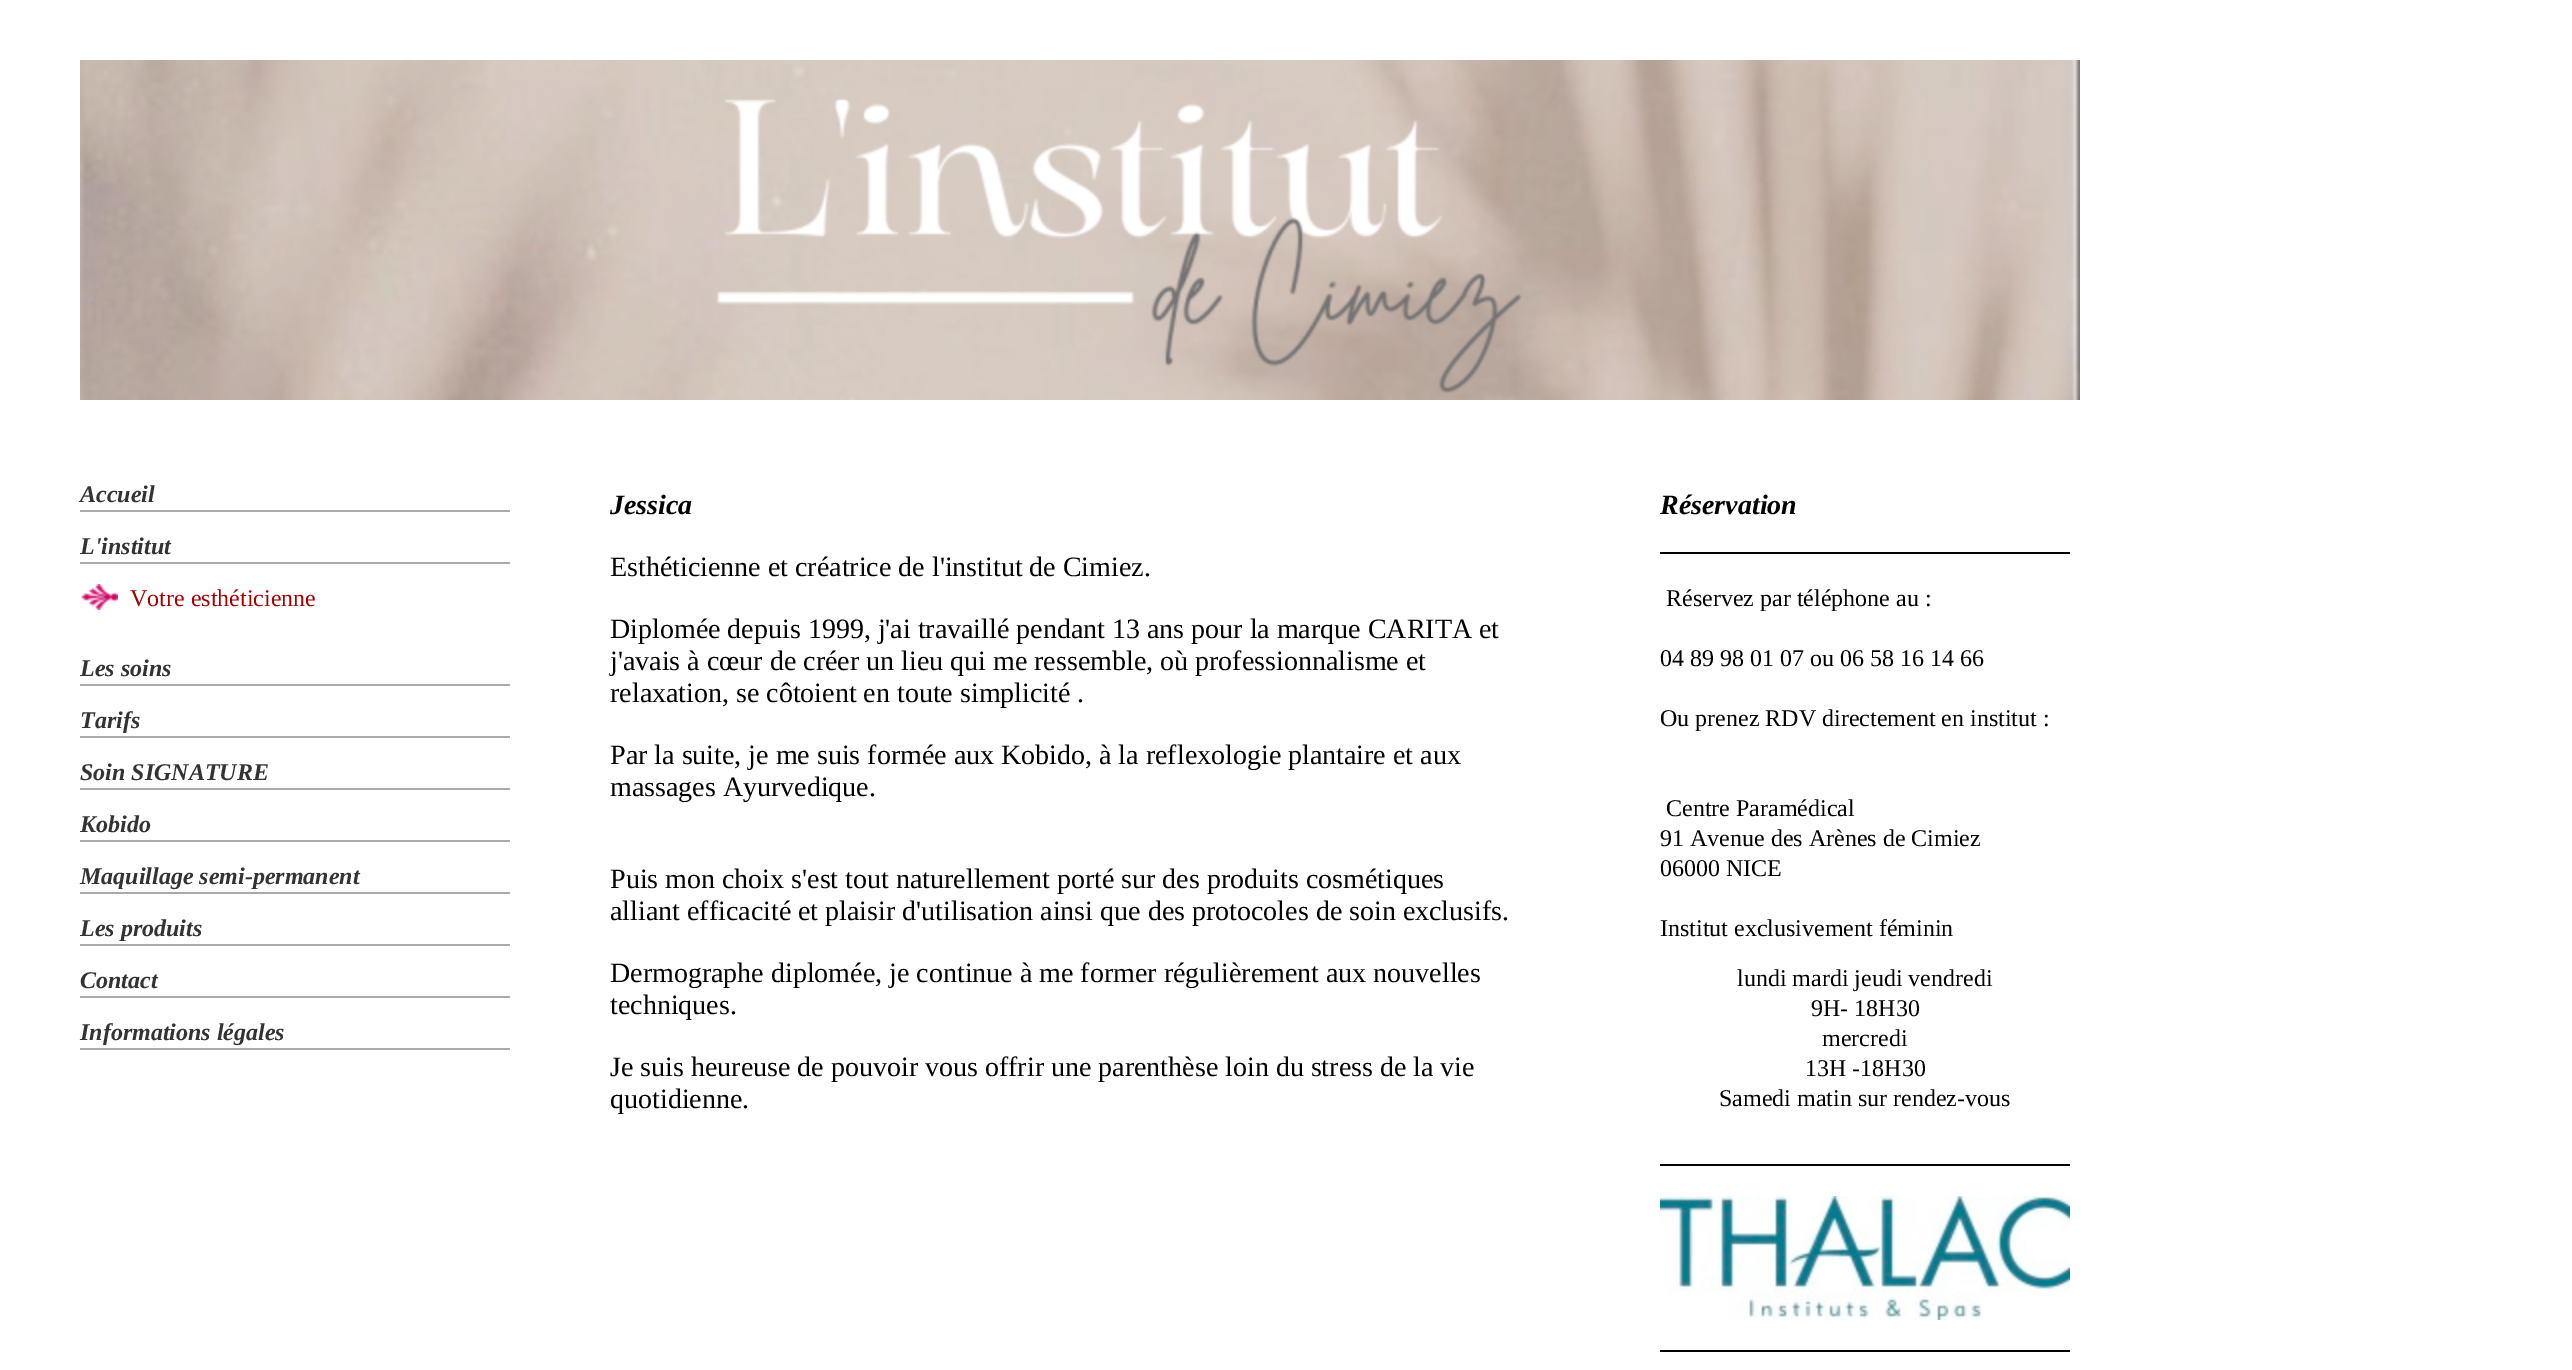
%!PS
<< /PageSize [2572 1370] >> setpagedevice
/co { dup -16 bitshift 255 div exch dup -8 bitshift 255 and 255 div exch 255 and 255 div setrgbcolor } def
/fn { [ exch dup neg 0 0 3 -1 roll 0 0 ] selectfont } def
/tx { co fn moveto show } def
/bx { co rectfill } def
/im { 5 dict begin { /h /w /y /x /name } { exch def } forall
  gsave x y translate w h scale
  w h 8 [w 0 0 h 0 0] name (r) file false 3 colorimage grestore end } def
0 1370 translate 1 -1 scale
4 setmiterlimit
0 0 2572 1370 16#FFFFFF bx
(media/1.raw) 80 60 2000 340 im
80 510 430 2 16#AAAAAA bx
80 562 430 2 16#AAAAAA bx
(media/2.raw) 81 584 37 26 im
80 684 430 2 16#AAAAAA bx
80 736 430 2 16#AAAAAA bx
80 788 430 2 16#AAAAAA bx
80 840 430 2 16#AAAAAA bx
80 892 430 2 16#AAAAAA bx
80 944 430 2 16#AAAAAA bx
80 996 430 2 16#AAAAAA bx
80 1048 430 2 16#AAAAAA bx
1660 552 410 2 16#000000 bx
1660 1164 410 2 16#000000 bx
(media/3.raw) 1660 1196 410 124 im
1660 1350 410 2 16#000000 bx
(Accueil) 80 502 /LiberationSerif-BoldItalic 24 16#333333 tx
(L'institut) 80 554 /LiberationSerif-BoldItalic 24 16#333333 tx
(Votre esthéticienne) 130 606 /LiberationSerif-Regular 24 16#A50000 tx
(Les soins) 80 676 /LiberationSerif-BoldItalic 24 16#333333 tx
(Tarifs) 80 728 /LiberationSerif-BoldItalic 24 16#333333 tx
(Soin SIGNATURE) 80 780 /LiberationSerif-BoldItalic 24 16#333333 tx
(Kobido) 80 832 /LiberationSerif-BoldItalic 24 16#333333 tx
(Maquillage semi-permanent) 80 884 /LiberationSerif-BoldItalic 24 16#333333 tx
(Les produits) 80 936 /LiberationSerif-BoldItalic 24 16#333333 tx
(Contact) 80 988 /LiberationSerif-BoldItalic 24 16#333333 tx
(Informations légales) 80 1040 /LiberationSerif-BoldItalic 24 16#333333 tx
(Jessica) 610 514 /LiberationSerif-BoldItalic 28 16#000000 tx
(Esthéticienne et créatrice de l'institut de Cimiez.) 610 576 /LiberationSerif-Regular 28 16#000000 tx
(Diplomée depuis 1999, j'ai travaillé pendant 13 ans pour la marque CARITA et) 610 638 /LiberationSerif-Regular 28 16#000000 tx
(j'avais à cœur de créer un lieu qui me ressemble, où professionnalisme et) 610 670 /LiberationSerif-Regular 28 16#000000 tx
(relaxation, se côtoient en toute simplicité .) 610 702 /LiberationSerif-Regular 28 16#000000 tx
(Par la suite, je me suis formée aux Kobido, à la reflexologie plantaire et aux) 610 764 /LiberationSerif-Regular 28 16#000000 tx
(massages Ayurvedique.) 610 796 /LiberationSerif-Regular 28 16#000000 tx
(Puis mon choix s'est tout naturellement porté sur des produits cosmétiques) 610 888 /LiberationSerif-Regular 28 16#000000 tx
(alliant efficacité et plaisir d'utilisation ainsi que des protocoles de soin exclusifs.) 610 920 /LiberationSerif-Regular 28 16#000000 tx
(Dermographe diplomée, je continue à me former régulièrement aux nouvelles) 610 982 /LiberationSerif-Regular 28 16#000000 tx
(techniques.) 610 1014 /LiberationSerif-Regular 28 16#000000 tx
(Je suis heureuse de pouvoir vous offrir une parenthèse loin du stress de la vie) 610 1076 /LiberationSerif-Regular 28 16#000000 tx
(quotidienne.) 610 1108 /LiberationSerif-Regular 28 16#000000 tx
(Réservation) 1660 514 /LiberationSerif-BoldItalic 28 16#000000 tx
(Réservez par téléphone au :) 1666 606 /LiberationSerif-Regular 24 16#000000 tx
(04 89 98 01 07 ou 06 58 16 14 66) 1660 666 /LiberationSerif-Regular 24 16#000000 tx
(Ou prenez RDV directement en institut :) 1660 726 /LiberationSerif-Regular 24 16#000000 tx
(Centre Paramédical) 1666 816 /LiberationSerif-Regular 24 16#000000 tx
(91 Avenue des Arènes de Cimiez) 1660 846 /LiberationSerif-Regular 24 16#000000 tx
(06000 NICE) 1660 876 /LiberationSerif-Regular 24 16#000000 tx
(Institut exclusivement féminin) 1660 936 /LiberationSerif-Regular 24 16#000000 tx
(lundi mardi jeudi vendredi) 1737 986 /LiberationSerif-Regular 24 16#000000 tx
(9H- 18H30) 1811 1016 /LiberationSerif-Regular 24 16#000000 tx
(mercredi) 1822 1046 /LiberationSerif-Regular 24 16#000000 tx
(13H -18H30) 1805 1076 /LiberationSerif-Regular 24 16#000000 tx
(Samedi matin sur rendez-vous) 1719 1106 /LiberationSerif-Regular 24 16#000000 tx
showpage
